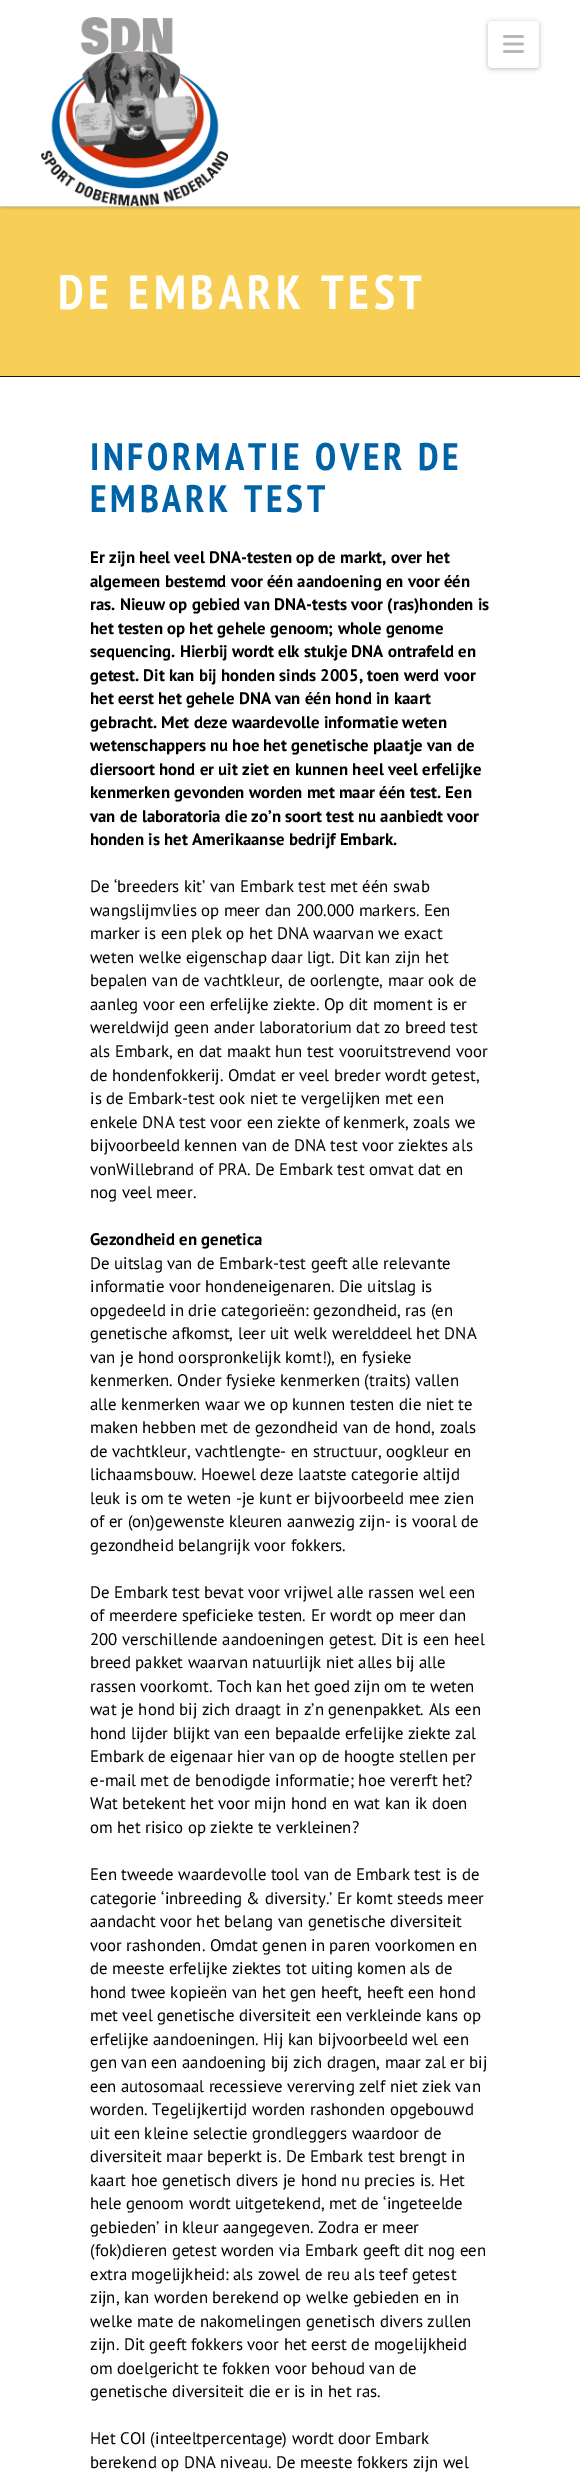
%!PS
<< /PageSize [580 2482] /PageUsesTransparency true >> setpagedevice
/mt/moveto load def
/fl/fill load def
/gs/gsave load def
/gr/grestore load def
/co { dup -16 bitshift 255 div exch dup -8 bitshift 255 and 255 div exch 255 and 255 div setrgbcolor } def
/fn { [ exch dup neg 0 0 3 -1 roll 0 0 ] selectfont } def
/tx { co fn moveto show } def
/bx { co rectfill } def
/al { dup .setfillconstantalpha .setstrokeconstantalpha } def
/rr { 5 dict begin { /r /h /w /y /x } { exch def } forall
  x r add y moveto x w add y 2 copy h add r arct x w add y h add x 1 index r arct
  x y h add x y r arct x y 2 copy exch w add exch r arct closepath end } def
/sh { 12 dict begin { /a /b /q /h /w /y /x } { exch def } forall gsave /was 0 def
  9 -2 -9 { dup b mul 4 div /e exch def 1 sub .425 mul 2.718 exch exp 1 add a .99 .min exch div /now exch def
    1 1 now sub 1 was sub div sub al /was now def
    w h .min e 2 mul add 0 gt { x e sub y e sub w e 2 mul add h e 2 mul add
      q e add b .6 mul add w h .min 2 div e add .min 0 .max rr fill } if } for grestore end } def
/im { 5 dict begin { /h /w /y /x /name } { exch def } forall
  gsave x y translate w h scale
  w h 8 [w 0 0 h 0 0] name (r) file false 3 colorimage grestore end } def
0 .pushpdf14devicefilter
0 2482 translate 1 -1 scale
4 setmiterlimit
0 0 580 2482 16#FFFFFF bx
0 207 580 169 16#F8CF56 bx
gs
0 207 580 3 rectclip
16#000000 co
2 0 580 207 0 2 .28 sh
gr
0 206 580 1 16#CCCCCC bx
(media/1.raw) 41 17 187 189 im
16#000000 co
488 22 51 47 4 2.5 .25 sh
16#FFFFFF co
488 21 51 47 4 rr fl
(media/2.raw) 503 35 21 18 im
0 376 580 1 16#151515 bx
/PTSansNarrow-Bold 48 fn
16#FFFFFF co
58 309 mt 4.75 0 (DE EMBARK TEST) ashow
/PTSansNarrow-Bold 38.4 fn
16#0062A7 co
90 470 mt 3.8 0 (INFORMATIE OVER DE) ashow
90 512 mt 3.8 0 (EMBARK TEST) ashow
(Er zijn heel veel DNA-testen op de markt, over het) 90 563 /PTSans-Bold 16.8 16#000000 tx
(algemeen bestemd voor één aandoening en voor één) 90 587 /PTSans-Bold 16.8 16#000000 tx
(ras. Nieuw op gebied van DNA-tests voor \(ras\)honden is) 90 610 /PTSans-Bold 16.8 16#000000 tx
(het testen op het gehele genoom; whole genome) 90 634 /PTSans-Bold 16.8 16#000000 tx
(sequencing. Hierbij wordt elk stukje DNA ontrafeld en) 90 657 /PTSans-Bold 16.8 16#000000 tx
(getest. Dit kan bij honden sinds 2005, toen werd voor) 90 681 /PTSans-Bold 16.8 16#000000 tx
(het eerst het gehele DNA van één hond in kaart) 90 704 /PTSans-Bold 16.8 16#000000 tx
(gebracht. Met deze waardevolle informatie weten) 90 728 /PTSans-Bold 16.8 16#000000 tx
(wetenschappers nu hoe het genetische plaatje van de) 90 751 /PTSans-Bold 16.8 16#000000 tx
(diersoort hond er uit ziet en kunnen heel veel erfelijke) 90 775 /PTSans-Bold 16.8 16#000000 tx
(kenmerken gevonden worden met maar één test. Een) 90 798 /PTSans-Bold 16.8 16#000000 tx
(van de laboratoria die zo’n soort test nu aanbiedt voor) 90 822 /PTSans-Bold 16.8 16#000000 tx
(honden is het Amerikaanse bedrijf Embark.) 90 845 /PTSans-Bold 16.8 16#000000 tx
(De ‘breeders kit’ van Embark test met één swab) 90 892 /PTSans-Regular 16.8 16#000000 tx
(wangslijmvlies op meer dan 200.000 markers. Een) 90 916 /PTSans-Regular 16.8 16#000000 tx
(marker is een plek op het DNA waarvan we exact) 90 939 /PTSans-Regular 16.8 16#000000 tx
(weten welke eigenschap daar ligt. Dit kan zijn het) 90 963 /PTSans-Regular 16.8 16#000000 tx
(bepalen van de vachtkleur, de oorlengte, maar ook de) 90 986 /PTSans-Regular 16.8 16#000000 tx
(aanleg voor een erfelijke ziekte. Op dit moment is er) 90 1010 /PTSans-Regular 16.8 16#000000 tx
(wereldwijd geen ander laboratorium dat zo breed test) 90 1033 /PTSans-Regular 16.8 16#000000 tx
(als Embark, en dat maakt hun test vooruitstrevend voor) 90 1057 /PTSans-Regular 16.8 16#000000 tx
(de hondenfokkerij. Omdat er veel breder wordt getest,) 90 1081 /PTSans-Regular 16.8 16#000000 tx
(is de Embark-test ook niet te vergelijken met een) 90 1104 /PTSans-Regular 16.8 16#000000 tx
(enkele DNA test voor een ziekte of kenmerk, zoals we) 90 1128 /PTSans-Regular 16.8 16#000000 tx
(bijvoorbeeld kennen van de DNA test voor ziektes als) 90 1151 /PTSans-Regular 16.8 16#000000 tx
(vonWillebrand of PRA. De Embark test omvat dat en) 90 1175 /PTSans-Regular 16.8 16#000000 tx
(nog veel meer.) 90 1198 /PTSans-Regular 16.8 16#000000 tx
(Gezondheid en genetica) 90 1245 /PTSans-Bold 16.8 16#000000 tx
(De uitslag van de Embark-test geeft alle relevante) 90 1269 /PTSans-Regular 16.8 16#000000 tx
(informatie voor hondeneigenaren. Die uitslag is) 90 1292 /PTSans-Regular 16.8 16#000000 tx
(opgedeeld in drie categorieën: gezondheid, ras \(en) 90 1316 /PTSans-Regular 16.8 16#000000 tx
(genetische afkomst, leer uit welk werelddeel het DNA) 90 1339 /PTSans-Regular 16.8 16#000000 tx
(van je hond oorspronkelijk komt!\), en fysieke) 90 1363 /PTSans-Regular 16.8 16#000000 tx
(kenmerken. Onder fysieke kenmerken \(traits\) vallen) 90 1386 /PTSans-Regular 16.8 16#000000 tx
(alle kenmerken waar we op kunnen testen die niet te) 90 1410 /PTSans-Regular 16.8 16#000000 tx
(maken hebben met de gezondheid van de hond, zoals) 90 1433 /PTSans-Regular 16.8 16#000000 tx
(de vachtkleur, vachtlengte- en structuur, oogkleur en) 90 1457 /PTSans-Regular 16.8 16#000000 tx
(lichaamsbouw. Hoewel deze laatste categorie altijd) 90 1480 /PTSans-Regular 16.8 16#000000 tx
(leuk is om te weten -je kunt er bijvoorbeeld mee zien) 90 1504 /PTSans-Regular 16.8 16#000000 tx
(of er \(on\)gewenste kleuren aanwezig zijn- is vooral de) 90 1527 /PTSans-Regular 16.8 16#000000 tx
(gezondheid belangrijk voor fokkers.) 90 1551 /PTSans-Regular 16.8 16#000000 tx
(De Embark test bevat voor vrijwel alle rassen wel een) 90 1598 /PTSans-Regular 16.8 16#000000 tx
(of meerdere speficieke testen. Er wordt op meer dan) 90 1621 /PTSans-Regular 16.8 16#000000 tx
(200 verschillende aandoeningen getest. Dit is een heel) 90 1645 /PTSans-Regular 16.8 16#000000 tx
(breed pakket waarvan natuurlijk niet alles bij alle) 90 1668 /PTSans-Regular 16.8 16#000000 tx
(rassen voorkomt. Toch kan het goed zijn om te weten) 90 1692 /PTSans-Regular 16.8 16#000000 tx
(wat je hond bij zich draagt in z’n genenpakket. Als een) 90 1715 /PTSans-Regular 16.8 16#000000 tx
(hond lijder blijkt van een bepaalde erfelijke ziekte zal) 90 1739 /PTSans-Regular 16.8 16#000000 tx
(Embark de eigenaar hier van op de hoogte stellen per) 90 1762 /PTSans-Regular 16.8 16#000000 tx
(e-mail met de benodigde informatie; hoe vererft het?) 90 1786 /PTSans-Regular 16.8 16#000000 tx
(Wat betekent het voor mijn hond en wat kan ik doen) 90 1809 /PTSans-Regular 16.8 16#000000 tx
(om het risico op ziekte te verkleinen?) 90 1833 /PTSans-Regular 16.8 16#000000 tx
(Een tweede waardevolle tool van de Embark test is de) 90 1880 /PTSans-Regular 16.8 16#000000 tx
(categorie ‘inbreeding & diversity.’ Er komt steeds meer) 90 1904 /PTSans-Regular 16.8 16#000000 tx
(aandacht voor het belang van genetische diversiteit) 90 1927 /PTSans-Regular 16.8 16#000000 tx
(voor rashonden. Omdat genen in paren voorkomen en) 90 1951 /PTSans-Regular 16.8 16#000000 tx
(de meeste erfelijke ziektes tot uiting komen als de) 90 1974 /PTSans-Regular 16.8 16#000000 tx
(hond twee kopieën van het gen heeft, heeft een hond) 90 1998 /PTSans-Regular 16.8 16#000000 tx
(met veel genetische diversiteit een verkleinde kans op) 90 2021 /PTSans-Regular 16.8 16#000000 tx
(erfelijke aandoeningen. Hij kan bijvoorbeeld wel een) 90 2045 /PTSans-Regular 16.8 16#000000 tx
(gen van een aandoening bij zich dragen, maar zal er bij) 90 2068 /PTSans-Regular 16.8 16#000000 tx
(een autosomaal recessieve vererving zelf niet ziek van) 90 2092 /PTSans-Regular 16.8 16#000000 tx
(worden. Tegelijkertijd worden rashonden opgebouwd) 90 2115 /PTSans-Regular 16.8 16#000000 tx
(uit een kleine selectie grondleggers waardoor de) 90 2139 /PTSans-Regular 16.8 16#000000 tx
(diversiteit maar beperkt is. De Embark test brengt in) 90 2162 /PTSans-Regular 16.8 16#000000 tx
(kaart hoe genetisch divers je hond nu precies is. Het) 90 2186 /PTSans-Regular 16.8 16#000000 tx
(hele genoom wordt uitgetekend, met de ‘ingeteelde) 90 2209 /PTSans-Regular 16.8 16#000000 tx
(gebieden’ in kleur aangegeven. Zodra er meer) 90 2233 /PTSans-Regular 16.8 16#000000 tx
(\(fok\)dieren getest worden via Embark geeft dit nog een) 90 2256 /PTSans-Regular 16.8 16#000000 tx
(extra mogelijkheid: als zowel de reu als teef getest) 90 2280 /PTSans-Regular 16.8 16#000000 tx
(zijn, kan worden berekend op welke gebieden en in) 90 2303 /PTSans-Regular 16.8 16#000000 tx
(welke mate de nakomelingen genetisch divers zullen) 90 2327 /PTSans-Regular 16.8 16#000000 tx
(zijn. Dit geeft fokkers voor het eerst de mogelijkheid) 90 2350 /PTSans-Regular 16.8 16#000000 tx
(om doelgericht te fokken voor behoud van de) 90 2374 /PTSans-Regular 16.8 16#000000 tx
(genetische diversiteit die er is in het ras.) 90 2397 /PTSans-Regular 16.8 16#000000 tx
(Het COI \(inteeltpercentage\) wordt door Embark) 90 2444 /PTSans-Regular 16.8 16#000000 tx
(berekend op DNA niveau. De meeste fokkers zijn wel) 90 2468 /PTSans-Regular 16.8 16#000000 tx
.poppdf14devicefilter showpage
